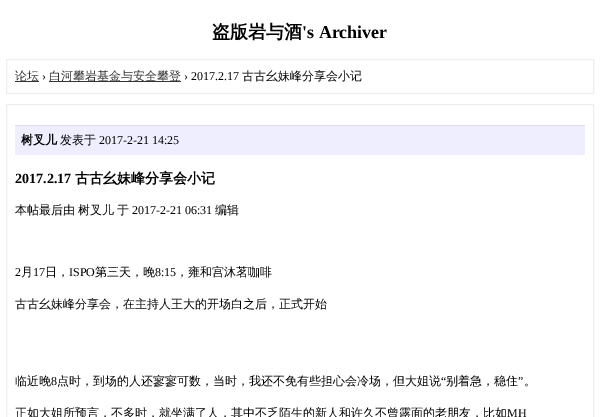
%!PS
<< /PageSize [600 417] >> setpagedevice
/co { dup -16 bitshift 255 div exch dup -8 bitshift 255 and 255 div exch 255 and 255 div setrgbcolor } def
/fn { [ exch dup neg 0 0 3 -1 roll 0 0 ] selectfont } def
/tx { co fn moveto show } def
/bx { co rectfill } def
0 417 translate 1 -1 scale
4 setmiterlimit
0 0 600 417 16#FFFFFF bx
16#EEEEEE co
6.5 59.5 587 34 rectstroke
15 81 24 1 16#333333 bx
49 81 132 1 16#333333 bx
16#EEEEEE co
6.5 104.5 587 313 rectstroke
15 126 570 29 16#EEEEFF bx
15 125 570 1 16#DDDDEE bx
(盗版岩与酒) 212 38 /WenQuanYiZenHei-Bold 18 16#000000 tx
('s Archiver) 302 38 /LiberationSerif-Bold 18 16#000000 tx
(论坛) 15 80 /WenQuanYiZenHei-Medium 12 16#333333 tx
(›) 42 80 /LiberationSerif-Regular 12 16#000000 tx
(白河攀岩基金与安全攀登) 49 80 /WenQuanYiZenHei-Medium 12 16#333333 tx
(› 2017.2.17) 184 80 /LiberationSerif-Regular 12 16#000000 tx
(古古幺妹峰分享会小记) 242 80 /WenQuanYiZenHei-Medium 12 16#000000 tx
(树叉儿) 21 144 /WenQuanYiZenHei-Bold 12 16#000000 tx
(发表于) 60 144 /WenQuanYiZenHei-Medium 12 16#000000 tx
(2017-2-21 14:25) 99 144 /LiberationSerif-Regular 12 16#000000 tx
(2017.2.17) 15 183 /LiberationSerif-Bold 14 16#000000 tx
(古古幺妹峰分享会小记) 75 183 /WenQuanYiZenHei-Bold 14 16#000000 tx
(本帖最后由) 15 214 /WenQuanYiZenHei-Medium 12 16#000000 tx
(树叉儿) 78 214 /WenQuanYiZenHei-Medium 12 16#000000 tx
(于) 117 214 /WenQuanYiZenHei-Medium 12 16#000000 tx
(2017-2-21 06:31) 132 214 /LiberationSerif-Regular 12 16#000000 tx
(编辑) 215 214 /WenQuanYiZenHei-Medium 12 16#000000 tx
(2) 15 276 /LiberationSerif-Regular 12 16#000000 tx
(月) 21 276 /WenQuanYiZenHei-Medium 12 16#000000 tx
(17) 33 276 /LiberationSerif-Regular 12 16#000000 tx
(日，) 45 276 /WenQuanYiZenHei-Medium 12 16#000000 tx
(ISPO) 69 276 /LiberationSerif-Regular 12 16#000000 tx
(第三天，晚) 95 276 /WenQuanYiZenHei-Medium 12 16#000000 tx
(8:15) 155 276 /LiberationSerif-Regular 12 16#000000 tx
(，雍和宫沐茗咖啡) 176 276 /WenQuanYiZenHei-Medium 12 16#000000 tx
(古古幺妹峰分享会，在主持人王大的开场白之后，正式开始) 15 308 /WenQuanYiZenHei-Medium 12 16#000000 tx
(临近晚) 15 385 /WenQuanYiZenHei-Medium 12 16#000000 tx
(8) 51 385 /LiberationSerif-Regular 12 16#000000 tx
(点时，到场的人还寥寥可数，当时，我还不免有些担心会冷场，但大姐说) 57 385 /WenQuanYiZenHei-Medium 12 16#000000 tx
(“) 441 385 /LiberationSerif-Regular 12 16#000000 tx
(别着急，稳住) 446 385 /WenQuanYiZenHei-Medium 12 16#000000 tx
(”) 518 385 /LiberationSerif-Regular 12 16#000000 tx
(。) 524 385 /WenQuanYiZenHei-Medium 12 16#000000 tx
(正如大姐所预言，不多时，就坐满了人，其中不乏陌生的新人和许久不曾露面的老朋友，比如) 15 417 /WenQuanYiZenHei-Medium 12 16#000000 tx
(MH) 507 417 /LiberationSerif-Regular 12 16#000000 tx
showpage
